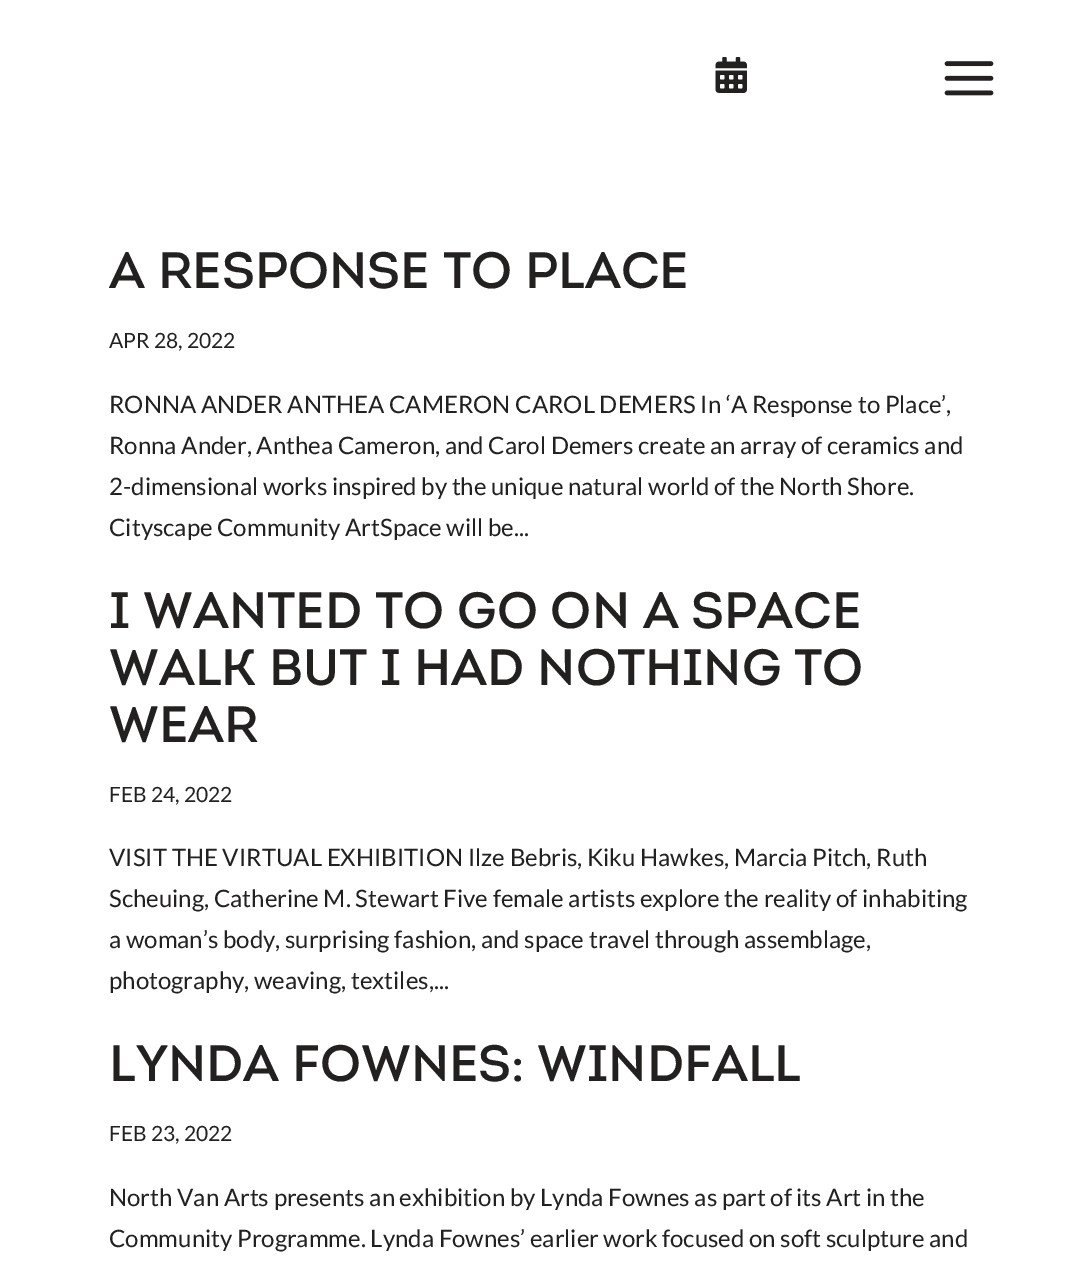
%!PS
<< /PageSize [1088 1267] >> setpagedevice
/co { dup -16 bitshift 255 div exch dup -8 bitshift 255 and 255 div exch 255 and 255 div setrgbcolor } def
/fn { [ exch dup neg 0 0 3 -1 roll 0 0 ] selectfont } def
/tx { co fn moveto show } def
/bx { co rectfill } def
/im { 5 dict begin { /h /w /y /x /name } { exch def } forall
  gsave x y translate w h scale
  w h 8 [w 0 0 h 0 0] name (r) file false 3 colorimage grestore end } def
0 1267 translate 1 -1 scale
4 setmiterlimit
0 0 1088 1267 16#FFFFFF bx
(media/1.raw) 715 57 32 36 im
(media/2.raw) 944 61 50 35 im
(A RESPONSE TO PLACE) 109 288 /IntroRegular-Regular 51 16#232020 tx
(APR 28, 2022) 109 348 /Lato-Regular 21 16#232020 tx
(RONNA ANDER ANTHEA CAMERON CAROL DEMERS In ‘A Response to Place’,) 109 413 /Lato-Regular 24 16#232020 tx
(Ronna Ander, Anthea Cameron, and Carol Demers create an array of ceramics and) 109 454 /Lato-Regular 24 16#232020 tx
(2-dimensional works inspired by the unique natural world of the North Shore.) 109 495 /Lato-Regular 24 16#232020 tx
(Cityscape Community ArtSpace will be...) 109 536 /Lato-Regular 24 16#232020 tx
(I WANTED TO GO ON A SPACE) 109 628 /IntroRegular-Regular 51 16#232020 tx
(WALK BUT I HAD NOTHING TO) 109 685 /IntroRegular-Regular 51 16#232020 tx
(WEAR) 109 742 /IntroRegular-Regular 51 16#232020 tx
(FEB 24, 2022) 109 802 /Lato-Regular 21 16#232020 tx
(VISIT THE VIRTUAL EXHIBITION Ilze Bebris, Kiku Hawkes, Marcia Pitch, Ruth) 109 866 /Lato-Regular 24 16#232020 tx
(Scheuing, Catherine M. Stewart Five female artists explore the reality of inhabiting) 109 907 /Lato-Regular 24 16#232020 tx
(a woman’s body, surprising fashion, and space travel through assemblage,) 109 948 /Lato-Regular 24 16#232020 tx
(photography, weaving, textiles,...) 109 989 /Lato-Regular 24 16#232020 tx
(LYNDA FOWNES: WINDFALL) 109 1081 /IntroRegular-Regular 51 16#232020 tx
(FEB 23, 2022) 109 1141 /Lato-Regular 21 16#232020 tx
(North Van Arts presents an exhibition by Lynda Fownes as part of its Art in the) 109 1206 /Lato-Regular 24 16#232020 tx
(Community Programme. Lynda Fownes’ earlier work focused on soft sculpture and) 109 1247 /Lato-Regular 24 16#232020 tx
showpage
